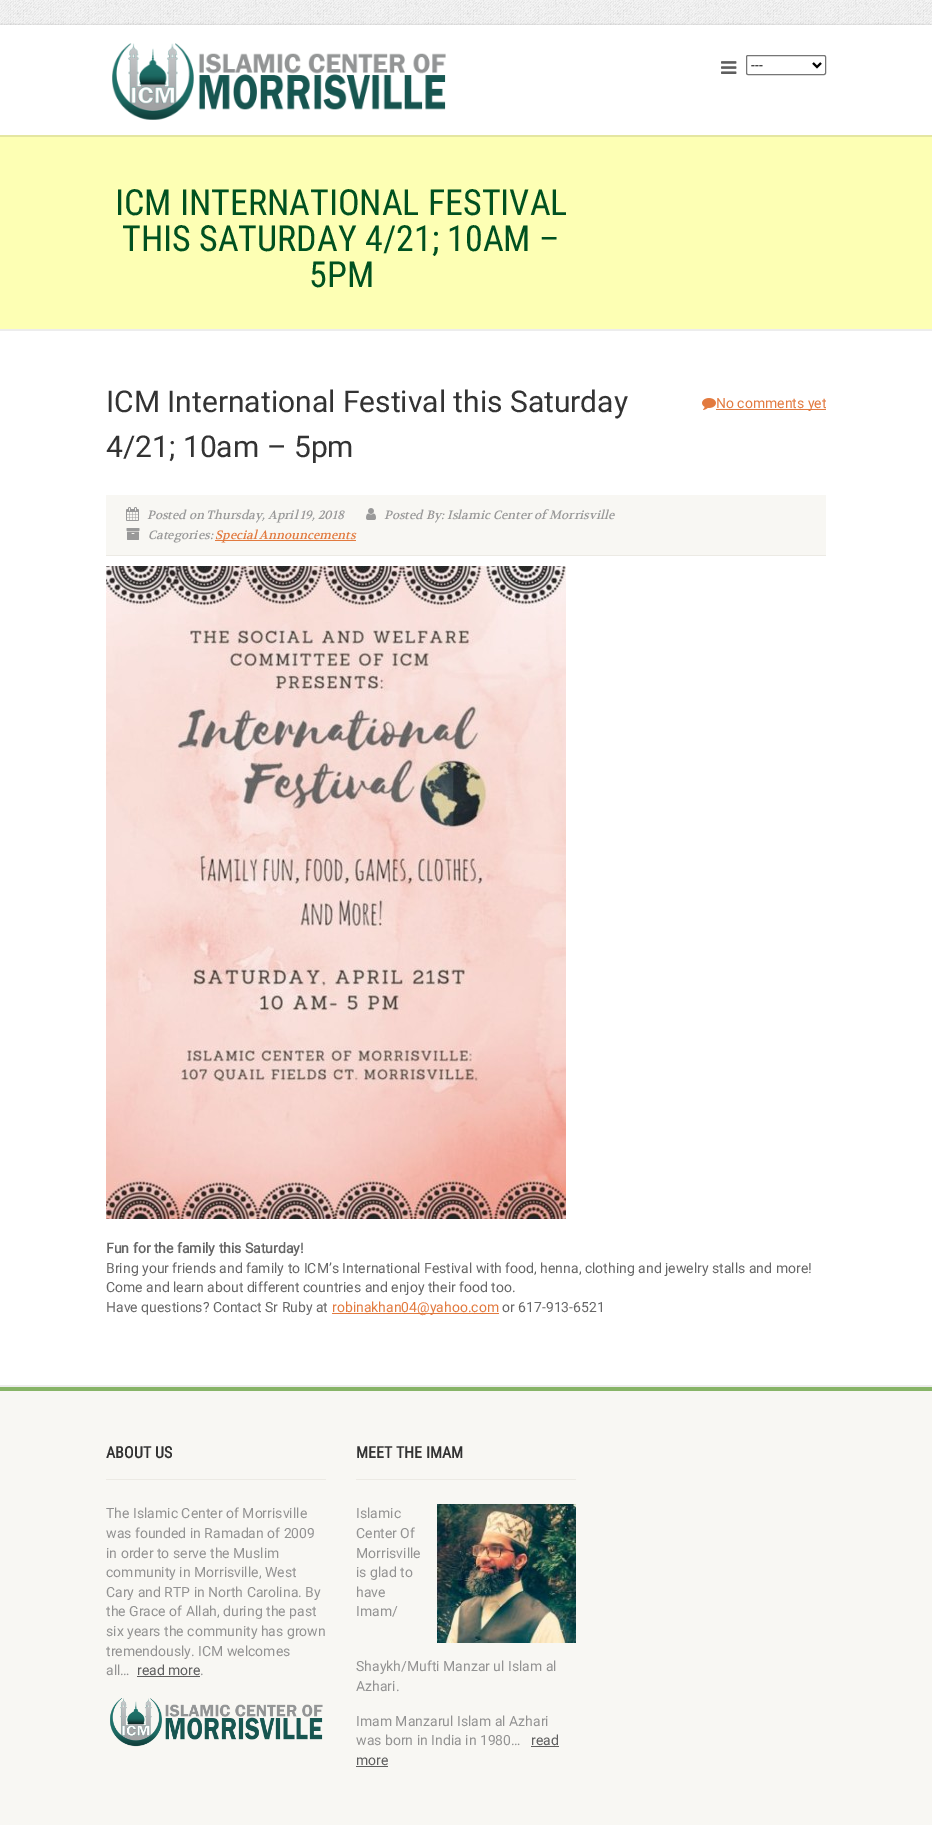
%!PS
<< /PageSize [932 1825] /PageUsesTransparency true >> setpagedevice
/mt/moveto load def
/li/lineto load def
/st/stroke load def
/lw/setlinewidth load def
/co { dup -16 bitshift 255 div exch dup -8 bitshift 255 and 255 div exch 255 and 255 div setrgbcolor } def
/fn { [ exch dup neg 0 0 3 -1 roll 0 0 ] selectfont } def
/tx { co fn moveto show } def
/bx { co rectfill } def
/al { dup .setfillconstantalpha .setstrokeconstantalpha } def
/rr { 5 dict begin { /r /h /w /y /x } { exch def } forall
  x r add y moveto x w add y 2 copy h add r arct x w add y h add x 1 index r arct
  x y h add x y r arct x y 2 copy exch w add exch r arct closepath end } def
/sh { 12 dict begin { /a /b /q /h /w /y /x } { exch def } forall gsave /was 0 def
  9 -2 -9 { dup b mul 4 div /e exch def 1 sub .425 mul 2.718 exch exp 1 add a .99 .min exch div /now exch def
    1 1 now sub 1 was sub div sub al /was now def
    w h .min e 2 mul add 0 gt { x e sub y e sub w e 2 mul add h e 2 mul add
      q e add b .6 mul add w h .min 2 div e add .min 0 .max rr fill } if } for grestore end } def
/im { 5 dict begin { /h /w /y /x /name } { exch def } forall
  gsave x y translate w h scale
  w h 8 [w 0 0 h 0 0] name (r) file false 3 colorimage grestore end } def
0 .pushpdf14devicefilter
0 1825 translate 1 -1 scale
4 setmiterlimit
0 0 932 1825 16#FFFFFF bx
(media/1.raw) 0 0 932 25 im
16#000000 co
0 25 932 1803 0 1 .2 sh
0 25 932 1360 16#FFFFFF bx
0 135 932 2 16#E4E6A2 bx
(media/2.raw) 112 43 334 77 im
(media/3.raw) 721 61 16 13 im
16#767676 co
746.5 55.5 79 19 1.5 rr st
16#000000 co
2 lw
813 63 mt 817 67 li 821 63 li st
0 329 932 2 16#EDEDED bx
0 137 932 192 16#FDFFB4 bx
(media/4.raw) 702 398 14 12 im
716 409 110 1 16#E27A3F bx
106 495 720 60 16#F8F7F3 bx
106 555 720 1 16#ECEAE4 bx
(media/5.raw) 126 507 13 14 im
(media/6.raw) 366 508 10 12 im
(media/7.raw) 126 528 14 12 im
215 540 141 1 16#E27A3F bx
(media/8.raw) 106 566 460 653 im
332 1313 167 1 16#E27A3F bx
0 1385 932 2 16#EDEDED bx
0 1391 932 434 16#F8F7F3 bx
0 1387 932 4 16#87B467 bx
106 1479 220 1 16#ECEAE4 bx
137 1676 63 1 16#5E5E5E bx
(media/9.raw) 110 1698 213 49 im
356 1479 220 1 16#ECEAE4 bx
(media/10.raw) 437 1504 139 139 im
531 1746 28 1 16#5E5E5E bx
356 1766 32 1 16#5E5E5E bx
(---) 751 70 /Roboto-Regular 14 16#000000 tx
(ICM INTERNATIONAL FESTIVAL) 115 215 /RobotoCondensed-Regular 36 16#005120 tx
(THIS SATURDAY 4/21; 10AM –) 122 251 /RobotoCondensed-Regular 36 16#005120 tx
(5PM) 309 287 /RobotoCondensed-Regular 36 16#005120 tx
(ICM International Festival this Saturday) 106 412 /Roboto-Regular 30 16#333333 tx
(4/21; 10am – 5pm) 106 457 /Roboto-Regular 30 16#333333 tx
(No comments yet) 716 408 /Roboto-Regular 14 16#E27A3F tx
(Posted on Thursday, April 19, 2018) 147 519 /Volkhov-Italic 12 16#999999 tx
(Posted By: Islamic Center of Morrisville) 384 519 /Volkhov-Italic 12 16#999999 tx
(Categories:) 148 539 /Volkhov-Italic 12 16#999999 tx
(Special Announcements) 215 539 /Volkhov-Italic 12 16#E27A3F tx
(Fun for the family this Saturday!) 106 1253 /Roboto-Bold 14 16#666666 tx
(Bring your friends and family to ICM’s International Festival with food, henna, clothing and jewelry stalls and more!) 106 1273 /Roboto-Regular 14 16#666666 tx
(Come and learn about different countries and enjoy their food too.) 106 1292 /Roboto-Regular 14 16#666666 tx
(Have questions? Contact Sr Ruby at) 106 1312 /Roboto-Regular 14 16#666666 tx
(robinakhan04@yahoo.com) 332 1312 /Roboto-Regular 14 16#E27A3F tx
(or 617-913-6521) 502 1312 /Roboto-Regular 14 16#666666 tx
(ABOUT US) 106 1458 /RobotoCondensed-Bold 16 16#333333 tx
(The Islamic Center of Morrisville) 106 1518 /Roboto-Regular 14 16#929292 tx
(was founded in Ramadan of 2009) 106 1538 /Roboto-Regular 14 16#929292 tx
(in order to serve the Muslim) 106 1558 /Roboto-Regular 14 16#929292 tx
(community in Morrisville, West) 106 1577 /Roboto-Regular 14 16#929292 tx
(Cary and RTP in North Carolina. By) 106 1597 /Roboto-Regular 14 16#929292 tx
(the Grace of Allah, during the past) 106 1616 /Roboto-Regular 14 16#929292 tx
(six years the community has grown) 106 1636 /Roboto-Regular 14 16#929292 tx
(tremendously. ICM welcomes) 106 1656 /Roboto-Regular 14 16#929292 tx
(all…) 106 1675 /Roboto-Regular 14 16#929292 tx
(read more) 137 1675 /Roboto-Regular 14 16#5E5E5E tx
(.) 200 1675 /Roboto-Regular 14 16#929292 tx
(MEET THE IMAM) 356 1458 /RobotoCondensed-Bold 16 16#333333 tx
(Islamic) 356 1518 /Roboto-Regular 14 16#929292 tx
(Center Of) 356 1538 /Roboto-Regular 14 16#929292 tx
(Morrisville) 356 1558 /Roboto-Regular 14 16#929292 tx
(is glad to) 356 1577 /Roboto-Regular 14 16#929292 tx
(have) 356 1597 /Roboto-Regular 14 16#929292 tx
(Imam/) 356 1616 /Roboto-Regular 14 16#929292 tx
(Shaykh/Mufti Manzar ul Islam al) 356 1671 /Roboto-Regular 14 16#929292 tx
(Azhari.) 356 1691 /Roboto-Regular 14 16#929292 tx
(Imam Manzarul Islam al Azhari) 356 1726 /Roboto-Regular 14 16#929292 tx
(was born in India in 1980…) 356 1745 /Roboto-Regular 14 16#929292 tx
(read) 531 1745 /Roboto-Regular 14 16#5E5E5E tx
(more) 356 1765 /Roboto-Regular 14 16#5E5E5E tx
.poppdf14devicefilter showpage
